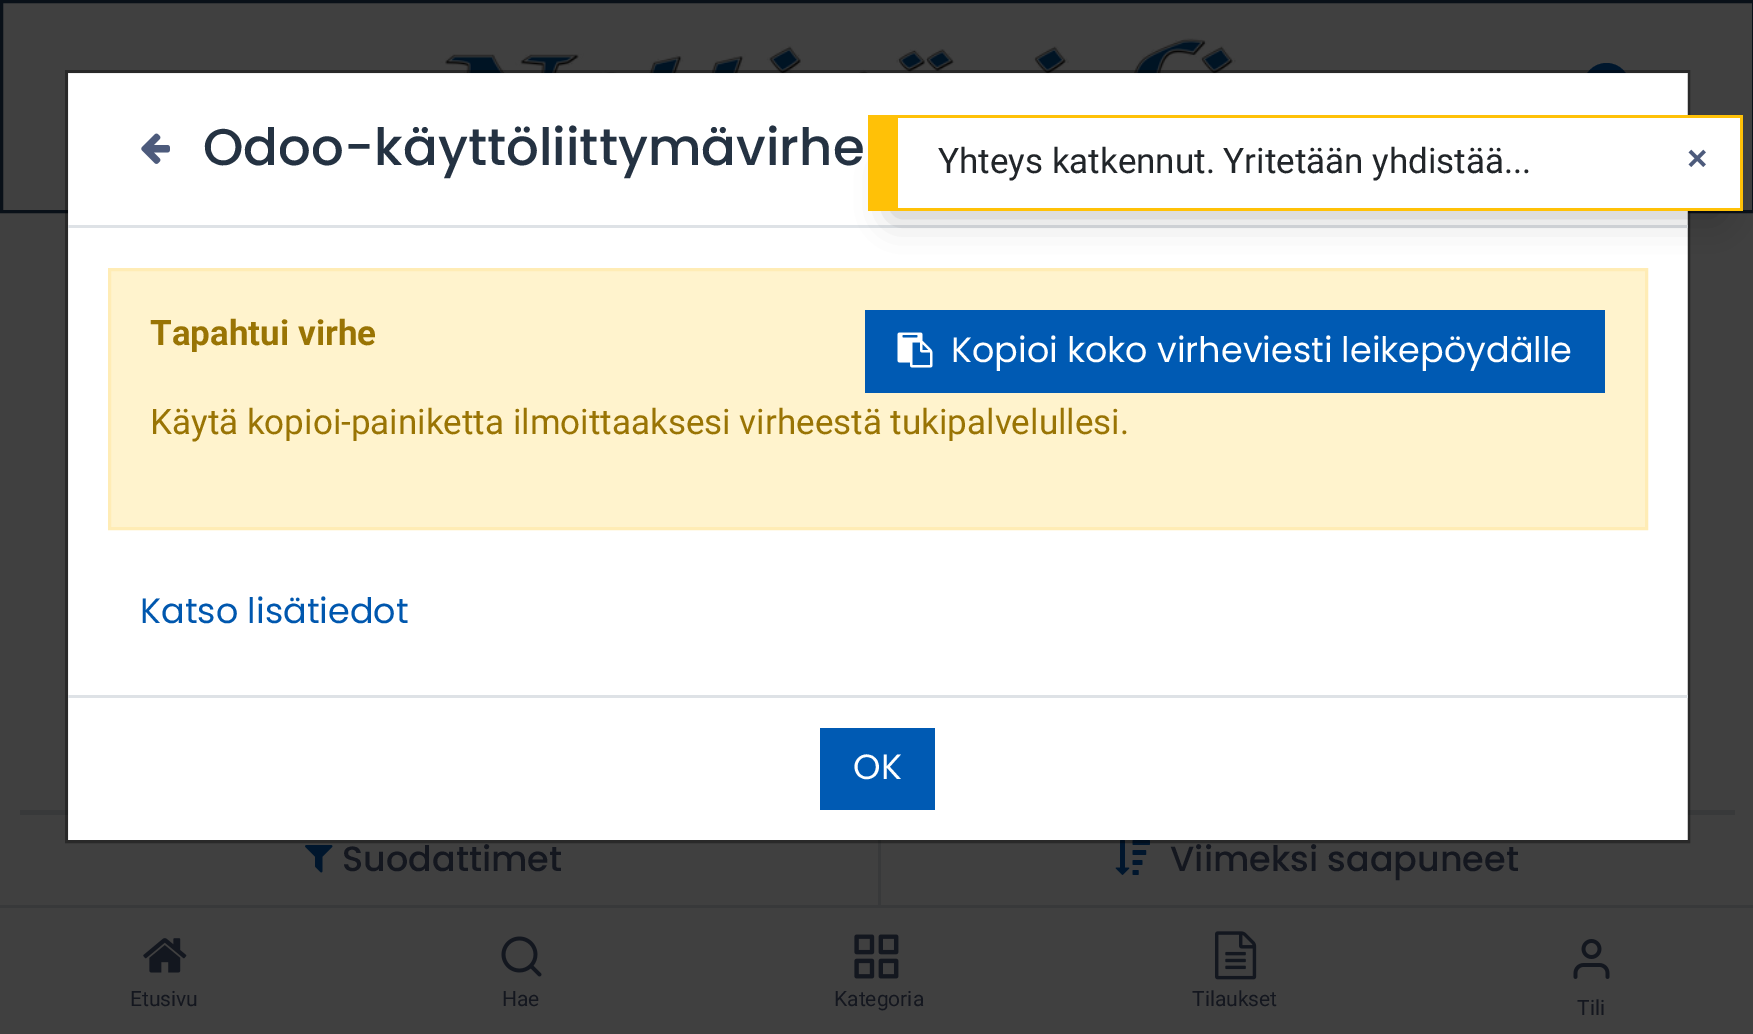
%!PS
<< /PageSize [1753 1034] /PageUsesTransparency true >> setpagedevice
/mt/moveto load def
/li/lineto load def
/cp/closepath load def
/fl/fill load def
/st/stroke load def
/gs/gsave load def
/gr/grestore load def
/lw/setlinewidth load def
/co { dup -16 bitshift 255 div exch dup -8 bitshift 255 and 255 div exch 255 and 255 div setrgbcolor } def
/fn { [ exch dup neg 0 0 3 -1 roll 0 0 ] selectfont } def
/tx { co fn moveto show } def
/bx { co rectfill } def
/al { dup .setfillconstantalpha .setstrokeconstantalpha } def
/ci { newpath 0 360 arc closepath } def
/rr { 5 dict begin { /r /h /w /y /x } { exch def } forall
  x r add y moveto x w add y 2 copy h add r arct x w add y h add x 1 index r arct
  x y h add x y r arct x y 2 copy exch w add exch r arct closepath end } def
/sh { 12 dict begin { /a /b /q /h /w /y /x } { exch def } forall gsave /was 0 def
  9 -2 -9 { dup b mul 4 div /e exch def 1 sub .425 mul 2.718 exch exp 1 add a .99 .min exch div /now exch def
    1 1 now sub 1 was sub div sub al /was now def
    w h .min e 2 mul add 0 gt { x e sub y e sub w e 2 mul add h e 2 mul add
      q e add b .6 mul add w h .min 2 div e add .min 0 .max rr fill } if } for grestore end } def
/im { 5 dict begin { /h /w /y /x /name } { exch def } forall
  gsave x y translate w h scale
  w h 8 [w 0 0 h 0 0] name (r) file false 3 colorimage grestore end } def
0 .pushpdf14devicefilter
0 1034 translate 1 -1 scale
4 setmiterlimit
0 0 1753 1034 16#404040 bx
16#091018 co
3 lw
1.5 1.5 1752 210 rectstroke
(media/3.raw) 440 38 796 35 im
16#00172D co
1606.5 86.5 23.5 ci fl
20 810 1715 5 16#38393A bx
878 840 3 65 16#38393A bx
(media/5.raw) 1115 840 35 35 im
0.2 al
16#000000 co
66.5 71.5 1622 770 rectstroke
1 al
68 73 1620 767 16#FFFFFF bx
0.2 al
16#000000 co
66.5 71.5 1622 770 rectstroke
1 al
68 225 1620 3 16#DEE2E6 bx
(media/1.raw) 141 133 29 31 im
16#FFF3CD co
109.5 269.5 mt 1646.5 269.5 li 1646.5 528.5 li 109.5 528.5 li cp gs fl gr
16#FFECB5 co
st
865 310 740 83 16#005AB3 bx
(media/2.raw) 897 332 36 36 im
68 695 1620 3 16#DEE2E6 bx
820 728 115 82 16#005AB3 bx
16#000000 co
893 170 825 45 0 17.5 .25 sh
898 118 842 90 16#FFFFFF bx
898 115 845 3 16#FFC107 bx
1740 115 3 95 16#FFC107 bx
868 208 875 3 16#FFC107 bx
868 115 30 93 16#FFC107 bx
0 905 1753 3 16#38393A bx
(media/4.raw) 305 845 28 28 im
(media/6.raw) 143 938 44 35 im
(media/7.raw) 501 936 41 41 im
(media/8.raw) 854 934 45 45 im
(media/9.raw) 1215 931 42 49 im
(media/10.raw) 1573 939 37 40 im
(Odoo-käyttöliittymävirhe) 203 165 /Poppins-Medium 51.5 16#243242 tx
(Tapahtui virhe) 150 345 /Roboto-Bold 35 16#997404 tx
(Kopioi koko virheviesti leikepöydälle) 951 362 /Poppins-Regular 35 16#FFFFFF tx
(Käytä kopioi-painiketta ilmoittaaksesi virheestä tukipalvelullesi.) 150 434 /Roboto-Regular 35 16#997404 tx
(Katso lisätiedot) 140 623 /Poppins-Regular 35 16#0057AE tx
(OK) 853 779 /Poppins-Regular 35 16#FFFFFF tx
(Yhteys katkennut. Yritetään yhdistää...) 938 173 /Roboto-Regular 35 16#212529 tx
(×) 1687 170 /LiberationSans-Bold 35 16#4D5B7C tx
(Suodattimet) 342 871 /Poppins-Medium 35 16#14171F tx
(Viimeksi saapuneet) 1170 871 /Poppins-Medium 35 16#14171F tx
(Etusivu) 130 1006 /Roboto-Regular 21 16#14171F tx
(Hae) 502 1006 /Roboto-Regular 21 16#14171F tx
(Kategoria) 834 1006 /Roboto-Regular 21 16#14171F tx
(Tilaukset) 1192 1006 /Roboto-Regular 21 16#14171F tx
(Tili) 1577 1015 /Roboto-Regular 21 16#14171F tx
.poppdf14devicefilter showpage
